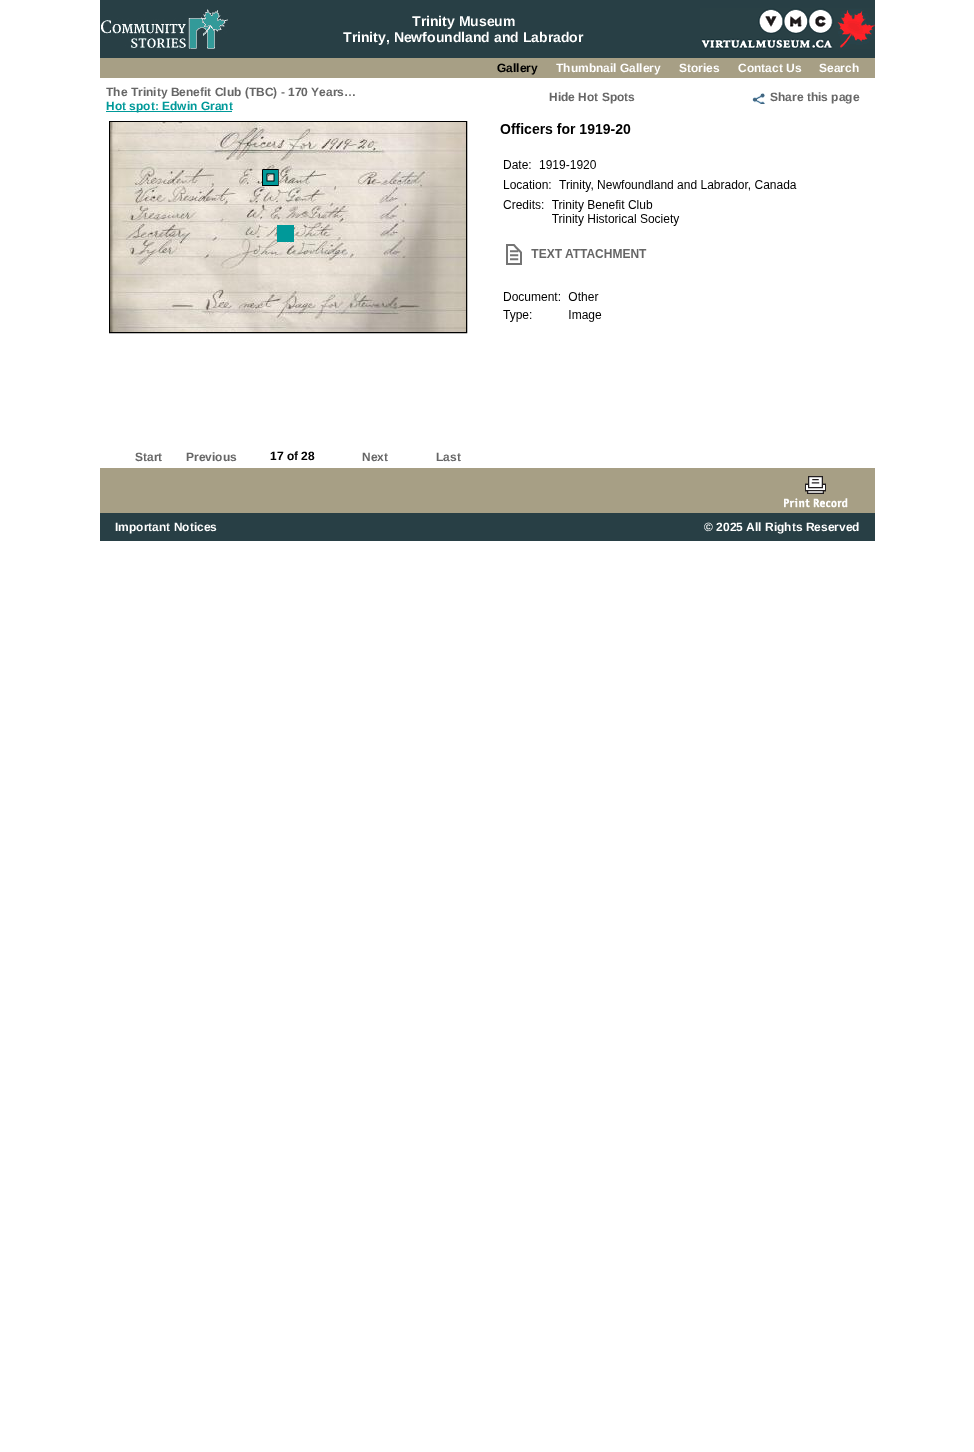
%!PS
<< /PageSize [974 1452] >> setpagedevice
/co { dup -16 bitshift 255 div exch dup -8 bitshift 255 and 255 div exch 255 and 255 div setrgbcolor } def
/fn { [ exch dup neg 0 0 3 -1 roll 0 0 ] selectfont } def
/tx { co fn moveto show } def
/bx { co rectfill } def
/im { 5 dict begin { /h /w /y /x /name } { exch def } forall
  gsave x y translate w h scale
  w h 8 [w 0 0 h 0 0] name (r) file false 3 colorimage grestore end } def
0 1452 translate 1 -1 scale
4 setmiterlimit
0 0 974 1452 16#FFFFFF bx
100 0 775 58 16#283F45 bx
(media/1.raw) 101 9 127 40 im
(media/2.raw) 700 8 175 41 im
100 58 775 20 16#A79F85 bx
106 111 126 1 16#009999 bx
(media/3.raw) 752 93 13 11 im
16#000000 co
109.5 121.5 357 211 rectstroke
(media/4.raw) 110 122 356 210 im
(media/5.raw) 262 169 17 17 im
277 225 17 17 16#009999 bx
(media/6.raw) 500 123 297 199 im
100 468 775 45 16#A79F85 bx
(media/7.raw) 784 476 64 32 im
100 513 775 28 16#283F45 bx
(Trinity Museum) 412 26 /LiberationSans-Bold 14 16#FFFFFF tx
(Trinity, Newfoundland and Labrador) 343 42 /LiberationSans-Bold 14 16#FFFFFF tx
(Gallery) 497 72 /LiberationSans-Bold 12 16#000000 tx
(Thumbnail Gallery) 556 72 /LiberationSans-Bold 12 16#FFFFFF tx
(Stories) 679 72 /LiberationSans-Bold 12 16#FFFFFF tx
(Contact Us) 738 72 /LiberationSans-Bold 12 16#FFFFFF tx
(Search) 819 72 /LiberationSans-Bold 12 16#FFFFFF tx
(The Trinity Benefit Club \(TBC\) - 170 Years…) 106 96 /LiberationSans-Bold 12 16#666666 tx
(Hot spot: Edwin Grant) 106 110 /LiberationSans-Bold 12 16#009999 tx
(Hide Hot Spots) 549 101 /LiberationSans-Bold 12 16#666666 tx
(Share this page) 770 101 /LiberationSans-Bold 12 16#666666 tx
(Start) 135 461 /LiberationSans-Bold 12 16#666666 tx
(Previous) 186 461 /LiberationSans-Bold 12 16#666666 tx
(17 of 28) 270 460 /LiberationSans-Bold 12 16#000000 tx
(Next) 362 461 /LiberationSans-Bold 12 16#666666 tx
(Last) 436 461 /LiberationSans-Bold 12 16#666666 tx
(Important Notices) 115 531 /LiberationSans-Bold 12 16#FFFFFF tx
(© 2025 All Rights Reserved) 704 531 /LiberationSans-Bold 12 16#FFFFFF tx
showpage
